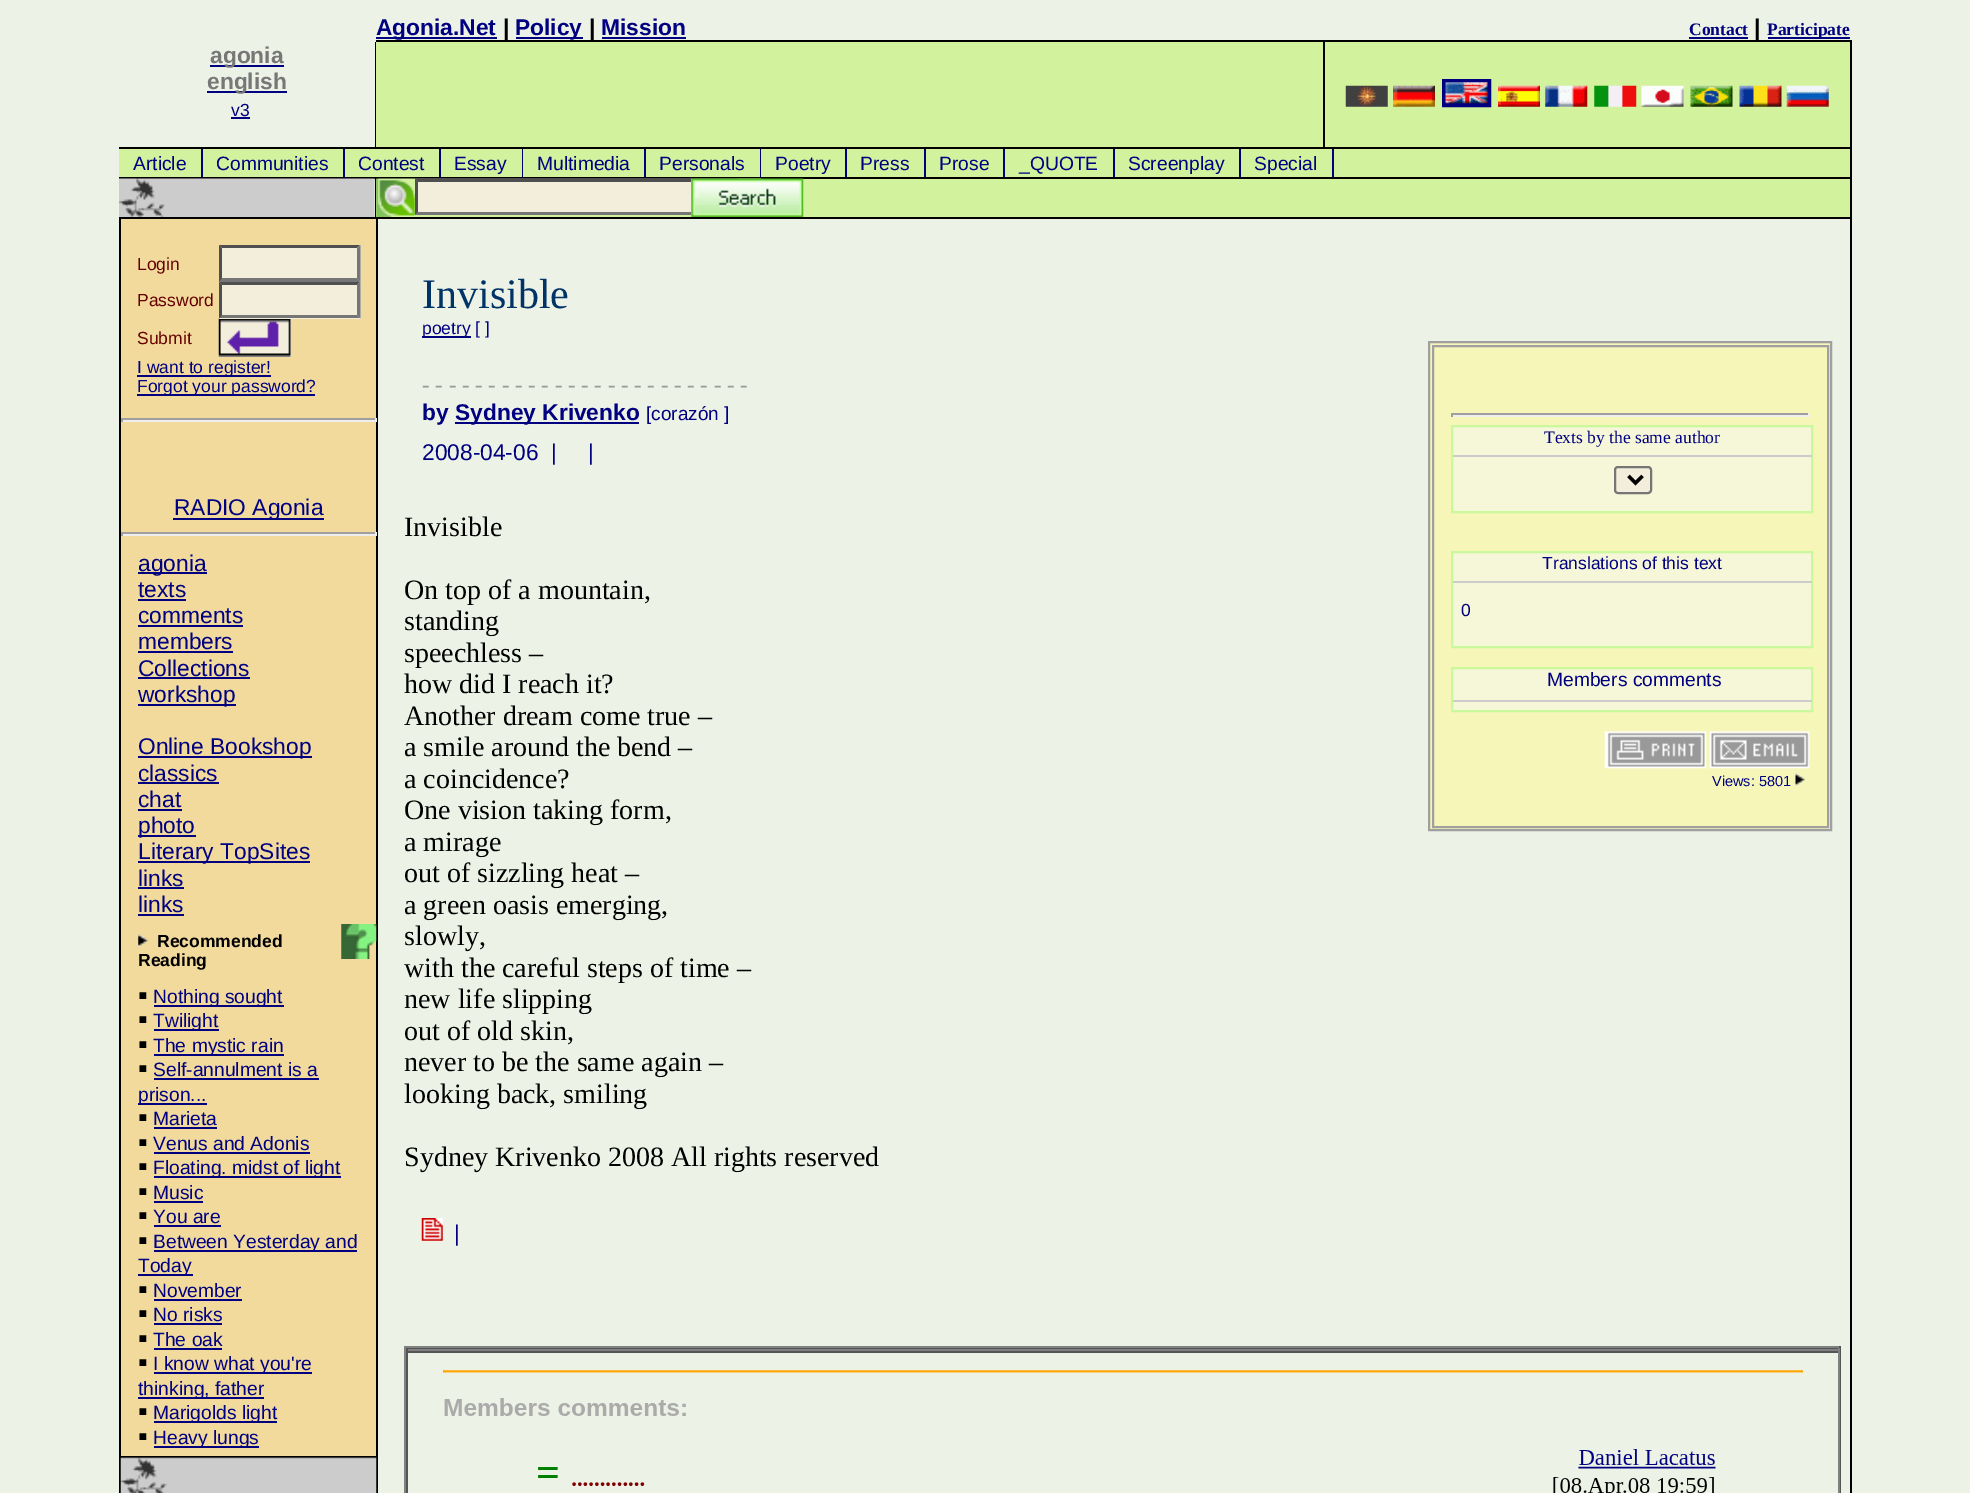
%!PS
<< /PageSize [1970 1493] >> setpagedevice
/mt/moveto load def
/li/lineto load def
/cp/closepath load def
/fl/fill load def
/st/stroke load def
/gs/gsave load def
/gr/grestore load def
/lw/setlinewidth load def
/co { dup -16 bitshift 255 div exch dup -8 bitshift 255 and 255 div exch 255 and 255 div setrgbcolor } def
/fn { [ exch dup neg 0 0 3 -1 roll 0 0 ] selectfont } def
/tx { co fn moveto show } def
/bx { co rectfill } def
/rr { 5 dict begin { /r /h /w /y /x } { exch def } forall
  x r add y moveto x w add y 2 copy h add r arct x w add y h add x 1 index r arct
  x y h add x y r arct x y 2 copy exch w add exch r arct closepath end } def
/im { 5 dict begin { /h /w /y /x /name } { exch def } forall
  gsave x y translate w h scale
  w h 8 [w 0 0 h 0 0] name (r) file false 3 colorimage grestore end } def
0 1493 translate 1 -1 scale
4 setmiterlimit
0 0 1970 1493 16#EDF2E6 bx
376 37 121 2 16#000080 bx
516 37 67 2 16#000080 bx
602 37 84 2 16#000080 bx
1689 37 59 2 16#000080 bx
1768 37 82 2 16#000080 bx
210 65 74 2 16#000080 bx
207 91 80 2 16#000080 bx
231 117 19 2 16#000080 bx
376 40 1476 2 16#000000 bx
375 42 1 105 16#000000 bx
376 42 947 105 16#D2F29D bx
1323 42 2 105 16#000000 bx
1325 42 525 105 16#D2F29D bx
16#000080 co
4 lw
1444 81 45 24 rectstroke
(media/1.raw) 1345 85 43 22 im
(media/2.raw) 1393 85 42 22 im
(media/3.raw) 1445 82 43 22 im
(media/4.raw) 1498 85 42 22 im
(media/5.raw) 1545 85 43 22 im
(media/6.raw) 1594 85 43 22 im
(media/7.raw) 1641 85 43 22 im
(media/8.raw) 1690 85 43 22 im
(media/9.raw) 1739 85 43 22 im
(media/10.raw) 1786 85 43 22 im
1850 42 2 105 16#000000 bx
119 147 1733 2 16#000000 bx
119 149 1731 28 16#D2F29D bx
201 149 2 28 16#000080 bx
343 149 2 28 16#000080 bx
439 149 2 28 16#000080 bx
522 149 1 28 16#000080 bx
644 149 2 28 16#000080 bx
760 149 1 28 16#000080 bx
845 149 2 28 16#000080 bx
924 149 2 28 16#000080 bx
1003 149 2 28 16#000080 bx
1113 149 2 28 16#000080 bx
1239 149 2 28 16#000080 bx
1332 149 2 28 16#000080 bx
1850 149 2 28 16#000000 bx
119 177 1733 2 16#000000 bx
(media/11.raw) 119 178 256 39 im
375 179 1 38 16#000000 bx
376 179 1474 38 16#D2F29D bx
(media/12.raw) 376 178 386 39 im
415 179 277 36 16#F2EEDB bx
16#4F4F4F co
415 178 mt 738 178 li 735 182 li 418 182 li cp fl
16#767676 co
738 215 mt 415 215 li 418 212 li 735 212 li cp fl
16#4F4F4F co
415 215 mt 415 178.5 li 418 182 li 418 212 li cp fl
(media/13.raw) 691 178 113 39 im
1850 179 2 38 16#000000 bx
119 217 1733 2 16#000000 bx
119 219 2 1274 16#000000 bx
121 219 255 1237 16#F2DA9D bx
220 319 71 38 16#F2EEDB bx
(media/14.raw) 218 318 73 39 im
219 245 142 74 16#F2EEDB bx
16#4F4F4F co
219 245 mt 360 245 li 357 248 li 222 248 li cp fl
16#767676 co
360.5 245 mt 360.5 282 li 357 278 li 357 248.5 li cp fl
360 282 mt 219 282 li 222 278 li 357 278 li cp fl
16#4F4F4F co
219 282 mt 219 245 li 222 248.5 li 222 278 li cp fl
219 282 mt 360 282 li 357 285 li 222 285 li cp fl
16#767676 co
360.5 282 mt 360.5 318.5 li 357 315 li 357 285 li cp fl
360 318 mt 219 318 li 222 315 li 357 315 li cp fl
16#4F4F4F co
219 318.5 mt 219 282 li 222 285 li 222 315 li cp fl
137 375 134 2 16#000080 bx
137 394 178 2 16#000080 bx
121 418 255 2 16#9F9F9F bx
376 219 2 1274 16#000000 bx
375 418 2 4 16#EEEEEE bx
121 420 255 2 16#EEEEEE bx
121 418 2 4 16#9F9F9F bx
173 518 151 2 16#000080 bx
121 532 255 2 16#9F9F9F bx
375 532 2 4 16#EEEEEE bx
121 534 255 2 16#EEEEEE bx
121 532 2 4 16#9F9F9F bx
138 572 69 2 16#000080 bx
138 599 48 2 16#000080 bx
138 625 105 2 16#000080 bx
138 651 95 2 16#000080 bx
138 677 112 2 16#000080 bx
138 704 98 2 16#000080 bx
138 756 174 2 16#000080 bx
138 782 81 2 16#000080 bx
138 809 44 2 16#000080 bx
138 835 58 2 16#000080 bx
138 861 172 2 16#000080 bx
138 887 46 2 16#000080 bx
138 914 46 2 16#000080 bx
(media/15.raw) 138 934 10 13 im
(media/16.raw) 341 924 36 35 im
154 1005 130 2 16#000080 bx
154 1029 65 2 16#000080 bx
154 1054 130 2 16#000080 bx
154 1078 165 2 16#000080 bx
138 1103 69 2 16#000080 bx
154 1127 63 2 16#000080 bx
154 1152 156 2 16#000080 bx
154 1176 187 2 16#000080 bx
154 1201 49 2 16#000080 bx
154 1225 67 2 16#000080 bx
154 1250 203 2 16#000080 bx
138 1274 55 2 16#000080 bx
154 1299 88 2 16#000080 bx
154 1323 68 2 16#000080 bx
154 1348 68 2 16#000080 bx
154 1372 158 2 16#000080 bx
138 1397 126 2 16#000080 bx
154 1421 123 2 16#000080 bx
154 1446 105 2 16#000080 bx
(media/17.raw) 120 1456 257 37 im
422 336 49 2 16#000080 bx
455 422 184 2 16#000080 bx
(media/18.raw) 421 1218 22 23 im
404 1346 1437 2 16#808080 bx
1839 1346 2 147 16#555555 bx
404 1346 2 147 16#808080 bx
406 1348 1433 1 16#555555 bx
1838 1348 2 4 16#808080 bx
406 1349 1433 2 16#808080 bx
406 1348 2 4 16#555555 bx
406 1351 1433 2 16#555555 bx
1838 1351 2 142 16#808080 bx
406 1351 2 142 16#555555 bx
(media/19.raw) 408 1353 1430 140 im
16#F6F6B8 co
1429 342 mt 1831 342 li 1831 830 li 1429 830 li cp gs fl gr
16#A0A0A0 co
2 lw
st
1433 346 395 481 rectstroke
1451 413 359 2 16#9F9F9F bx
1808 413 2 4 16#EEEEEE bx
1451 415 359 2 16#EEEEEE bx
1451 413 2 4 16#9F9F9F bx
16#F6F6D8 co
1452 426 mt 1812 426 li 1812 512 li 1452 512 li cp gs fl gr
16#CAF99B co
st
1453 455 359 2 16#CCCCCC bx
16#F2EEDB co
1615 467 36 26 3 rr gs fl gr
16#767676 co
st
16#000000 co
3.5 lw
1628.5 476 mt 1635.5 483 li 1642.5 476 li st
16#F6F6D8 co
1452 552 mt 1812 552 li 1812 647 li 1452 647 li cp gs fl gr
16#CAF99B co
2 lw
st
1453 581 359 2 16#CCCCCC bx
16#F6F6D8 co
1452 668 mt 1812 668 li 1812 711 li 1452 711 li cp gs fl gr
16#CAF99B co
st
1453 700 359 2 16#CCCCCC bx
(media/20.raw) 1604 731 103 38 im
(media/21.raw) 1709 731 101 38 im
(media/22.raw) 1795 773 10 13 im
1850 219 2 1274 16#000000 bx
(Agonia.Net) 376 35 /LiberationSans-Bold 22.75 16#000080 tx
(|) 503 35 /LiberationSans-Bold 22.75 16#000000 tx
(Policy) 515 35 /LiberationSans-Bold 22.75 16#000080 tx
(|) 589 35 /LiberationSans-Bold 22.75 16#000000 tx
(Mission) 601 35 /LiberationSans-Bold 22.75 16#000080 tx
(Contact) 1689 35 /LiberationSerif-Bold 17.5 16#000080 tx
(|) 1754 35 /LiberationSans-Bold 22.75 16#000000 tx
(Participate) 1767 35 /LiberationSerif-Bold 17.5 16#000080 tx
(agonia) 210 63 /LiberationSans-Bold 22.75 16#777777 tx
(english) 207 89 /LiberationSans-Bold 22.75 16#777777 tx
(v3) 231 116 /LiberationSans-Regular 17.5 16#000080 tx
(Article) 133 170 /LiberationSans-Regular 19.25 16#000080 tx
(Communities) 216 170 /LiberationSans-Regular 19.25 16#000080 tx
(Contest) 358 170 /LiberationSans-Regular 19.25 16#000080 tx
(Essay) 454 170 /LiberationSans-Regular 19.25 16#000080 tx
(Multimedia) 537 170 /LiberationSans-Regular 19.25 16#000080 tx
(Personals) 659 170 /LiberationSans-Regular 19.25 16#000080 tx
(Poetry) 775 170 /LiberationSans-Regular 19.25 16#000080 tx
(Press) 860 170 /LiberationSans-Regular 19.25 16#000080 tx
(Prose) 939 170 /LiberationSans-Regular 19.25 16#000080 tx
(_QUOTE) 1019 170 /LiberationSans-Regular 19.25 16#000080 tx
(Screenplay) 1128 170 /LiberationSans-Regular 19.25 16#000080 tx
(Special) 1254 170 /LiberationSans-Regular 19.25 16#000080 tx
(Login) 137 270 /LiberationSans-Regular 17.5 16#660000 tx
(Password) 137 306 /LiberationSans-Regular 17.5 16#660000 tx
(Submit) 137 344 /LiberationSans-Regular 17.5 16#660000 tx
(I want to register!) 137 373 /LiberationSans-Regular 17.5 16#000080 tx
(Forgot your password?) 137 392 /LiberationSans-Regular 17.5 16#000080 tx
(RADIO Agonia) 174 515 /LiberationSans-Regular 22.75 16#000080 tx
(agonia) 138 571 /LiberationSans-Regular 22.75 16#000080 tx
(texts) 138 597 /LiberationSans-Regular 22.75 16#000080 tx
(comments) 138 623 /LiberationSans-Regular 22.75 16#000080 tx
(members) 138 649 /LiberationSans-Regular 22.75 16#000080 tx
(Collections) 138 676 /LiberationSans-Regular 22.75 16#000080 tx
(workshop) 138 702 /LiberationSans-Regular 22.75 16#000080 tx
(Online Bookshop) 138 754 /LiberationSans-Regular 22.75 16#000080 tx
(classics) 138 781 /LiberationSans-Regular 22.75 16#000080 tx
(chat) 138 807 /LiberationSans-Regular 22.75 16#000080 tx
(photo) 138 833 /LiberationSans-Regular 22.75 16#000080 tx
(Literary TopSites) 138 859 /LiberationSans-Regular 22.75 16#000080 tx
(links) 138 886 /LiberationSans-Regular 22.75 16#000080 tx
(links) 138 912 /LiberationSans-Regular 22.75 16#000080 tx
(Recommended) 157 947 /LiberationSans-Bold 17.5 16#000000 tx
(Reading) 138 966 /LiberationSans-Bold 17.5 16#000000 tx
(￭) 138 1003 /ChironHeiHK-Regular 19.25 16#000000 tx
(Nothing sought) 153 1003 /LiberationSans-Regular 19.25 16#000080 tx
(￭) 138 1027 /ChironHeiHK-Regular 19.25 16#000000 tx
(Twilight) 153 1027 /LiberationSans-Regular 19.25 16#000080 tx
(￭) 138 1052 /ChironHeiHK-Regular 19.25 16#000000 tx
(The mystic rain) 153 1052 /LiberationSans-Regular 19.25 16#000080 tx
(￭) 138 1076 /ChironHeiHK-Regular 19.25 16#000000 tx
(Self-annulment is a) 153 1076 /LiberationSans-Regular 19.25 16#000080 tx
(prison...) 138 1101 /LiberationSans-Regular 19.25 16#000080 tx
(￭) 138 1125 /ChironHeiHK-Regular 19.25 16#000000 tx
(Marieta) 153 1125 /LiberationSans-Regular 19.25 16#000080 tx
(￭) 138 1150 /ChironHeiHK-Regular 19.25 16#000000 tx
(Venus and Adonis) 153 1150 /LiberationSans-Regular 19.25 16#000080 tx
(￭) 138 1174 /ChironHeiHK-Regular 19.25 16#000000 tx
(Floating. midst of light) 153 1174 /LiberationSans-Regular 19.25 16#000080 tx
(￭) 138 1199 /ChironHeiHK-Regular 19.25 16#000000 tx
(Music) 153 1199 /LiberationSans-Regular 19.25 16#000080 tx
(￭) 138 1223 /ChironHeiHK-Regular 19.25 16#000000 tx
(You are) 153 1223 /LiberationSans-Regular 19.25 16#000080 tx
(￭) 138 1248 /ChironHeiHK-Regular 19.25 16#000000 tx
(Between Yesterday and) 153 1248 /LiberationSans-Regular 19.25 16#000080 tx
(Today) 138 1272 /LiberationSans-Regular 19.25 16#000080 tx
(￭) 138 1297 /ChironHeiHK-Regular 19.25 16#000000 tx
(November) 153 1297 /LiberationSans-Regular 19.25 16#000080 tx
(￭) 138 1321 /ChironHeiHK-Regular 19.25 16#000000 tx
(No risks) 153 1321 /LiberationSans-Regular 19.25 16#000080 tx
(￭) 138 1346 /ChironHeiHK-Regular 19.25 16#000000 tx
(The oak) 153 1346 /LiberationSans-Regular 19.25 16#000080 tx
(￭) 138 1370 /ChironHeiHK-Regular 19.25 16#000000 tx
(I know what you're) 153 1370 /LiberationSans-Regular 19.25 16#000080 tx
(thinking, father) 138 1395 /LiberationSans-Regular 19.25 16#000080 tx
(￭) 138 1419 /ChironHeiHK-Regular 19.25 16#000000 tx
(Marigolds light) 153 1419 /LiberationSans-Regular 19.25 16#000080 tx
(￭) 138 1444 /ChironHeiHK-Regular 19.25 16#000000 tx
(Heavy lungs) 153 1444 /LiberationSans-Regular 19.25 16#000080 tx
(Invisible) 422 308 /LiberationSerif-Regular 42 16#003366 tx
(poetry [ ]) 422 334 /LiberationSans-Regular 17.5 16#000080 tx
(- - - - - - - - - - - - - - - - - - - - - - - - -) 422 392 /LiberationSerif-Regular 22.75 16#999999 tx
(by) 422 420 /LiberationSans-Bold 22.75 16#000080 tx
(Sydney Krivenko) 455 420 /LiberationSans-Bold 22.75 16#000080 tx
([corazón ]) 646 420 /LiberationSans-Regular 19 16#000080 tx
(2008-04-06) 422 460 /LiberationSans-Regular 22.75 16#000080 tx
(|) 551 460 /LiberationSans-Regular 22.75 16#000080 tx
(|) 588 460 /LiberationSans-Regular 22.75 16#000080 tx
(Invisible) 404 536 /LiberationSerif-Regular 28 16#000000 tx
(On top of a mountain,) 404 599 /LiberationSerif-Regular 28 16#000000 tx
(standing) 404 630 /LiberationSerif-Regular 28 16#000000 tx
(speechless –) 404 662 /LiberationSerif-Regular 28 16#000000 tx
(how did I reach it?) 404 693 /LiberationSerif-Regular 28 16#000000 tx
(Another dream come true –) 404 725 /LiberationSerif-Regular 28 16#000000 tx
(a smile around the bend –) 404 756 /LiberationSerif-Regular 28 16#000000 tx
(a coincidence?) 404 788 /LiberationSerif-Regular 28 16#000000 tx
(One vision taking form,) 404 819 /LiberationSerif-Regular 28 16#000000 tx
(a mirage) 404 851 /LiberationSerif-Regular 28 16#000000 tx
(out of sizzling heat –) 404 882 /LiberationSerif-Regular 28 16#000000 tx
(a green oasis emerging,) 404 914 /LiberationSerif-Regular 28 16#000000 tx
(slowly,) 404 945 /LiberationSerif-Regular 28 16#000000 tx
(with the careful steps of time –) 404 977 /LiberationSerif-Regular 28 16#000000 tx
(new life slipping) 404 1008 /LiberationSerif-Regular 28 16#000000 tx
(out of old skin,) 404 1040 /LiberationSerif-Regular 28 16#000000 tx
(never to be the same again –) 404 1071 /LiberationSerif-Regular 28 16#000000 tx
(looking back, smiling) 404 1103 /LiberationSerif-Regular 28 16#000000 tx
(Sydney Krivenko 2008 All rights reserved) 404 1166 /LiberationSerif-Regular 28 16#000000 tx
(|) 454 1241 /LiberationSans-Regular 22.75 16#000080 tx
(Texts by the same author) 1544 443 /LiberationSerif-Regular 17.5 16#000080 tx
(Translations of this text) 1542 569 /LiberationSans-Regular 17.5 16#000080 tx
(0) 1461 616 /LiberationSans-Regular 17.5 16#000080 tx
(Members comments) 1547 686 /LiberationSans-Regular 19.25 16#000080 tx
(Views: 5801) 1712 786 /LiberationSans-Regular 14.5 16#000080 tx
showpage
